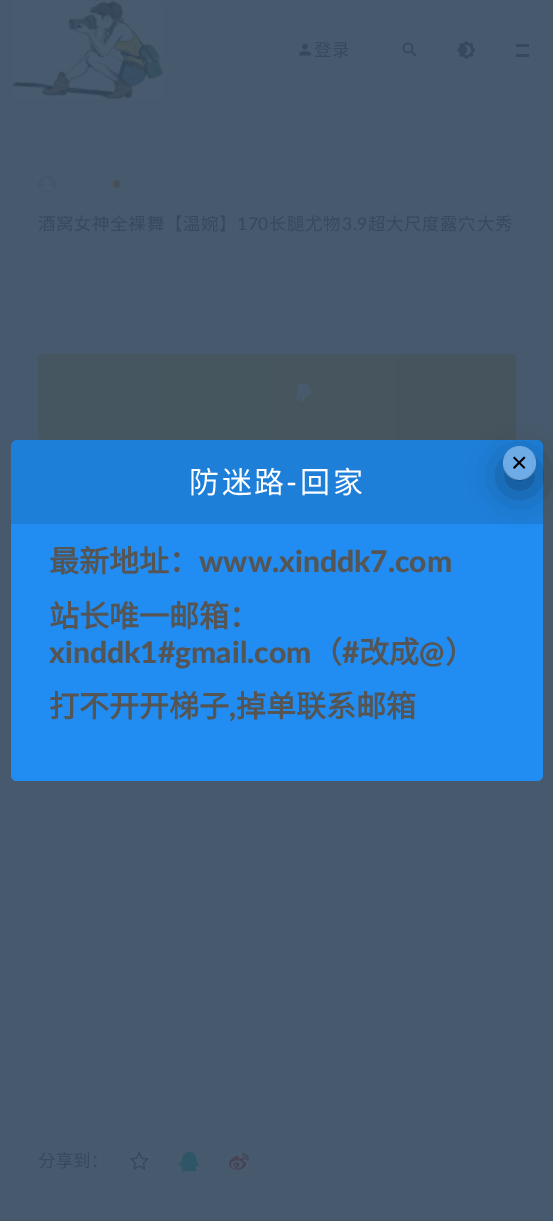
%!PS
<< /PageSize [553 1221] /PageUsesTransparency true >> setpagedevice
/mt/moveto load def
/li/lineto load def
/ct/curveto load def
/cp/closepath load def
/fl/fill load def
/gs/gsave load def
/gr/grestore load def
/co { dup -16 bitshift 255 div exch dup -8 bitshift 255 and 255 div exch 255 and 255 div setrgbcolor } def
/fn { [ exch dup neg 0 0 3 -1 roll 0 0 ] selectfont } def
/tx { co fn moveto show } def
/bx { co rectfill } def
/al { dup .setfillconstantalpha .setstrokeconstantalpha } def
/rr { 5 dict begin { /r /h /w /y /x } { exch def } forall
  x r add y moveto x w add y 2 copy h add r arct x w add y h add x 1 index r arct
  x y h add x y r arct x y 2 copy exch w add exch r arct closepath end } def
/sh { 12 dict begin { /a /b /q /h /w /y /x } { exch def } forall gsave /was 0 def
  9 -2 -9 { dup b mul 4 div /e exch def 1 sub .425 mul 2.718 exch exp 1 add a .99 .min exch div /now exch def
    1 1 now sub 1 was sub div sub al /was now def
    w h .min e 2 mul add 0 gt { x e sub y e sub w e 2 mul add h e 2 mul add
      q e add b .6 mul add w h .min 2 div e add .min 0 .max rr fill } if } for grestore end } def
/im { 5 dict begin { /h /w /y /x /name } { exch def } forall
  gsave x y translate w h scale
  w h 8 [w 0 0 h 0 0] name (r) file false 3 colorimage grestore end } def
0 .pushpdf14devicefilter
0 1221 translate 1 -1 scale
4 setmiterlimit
0 0 553 1221 16#475A6D bx
(media/1.raw) 12 1 151 98 im
(media/2.raw) 299 43 12 13 im
(media/3.raw) 402 42 15 15 im
(media/4.raw) 457 40 19 20 im
516 44 13 3 16#34495E bx
516 54 13 3 16#34495E bx
(media/5.raw) 37 175 19 19 im
16#484D58 co
113 180 7 8 3.5 rr fl
gs 38 354 478 86 5 rr clip newpath
<< /ShadingType 2 /ColorSpace /DeviceRGB /Coords [38 397 516 397] /Extend [true true] /Function << /FunctionType 2 /Domain [0 1] /C0 [.278 .341 .38] /C1 [.275 .333 .365] /N 1 >> >> shfill gr
(media/6.raw) 296 383 16 19 im
(media/7.raw) 130 1152 19 18 im
(media/8.raw) 179 1151 20 21 im
(media/9.raw) 228 1153 21 17 im
16#218DF2 co
11 440 532 341 6 rr fl
0.1 al
16#000000 co
15 440 mt 539 440 li 541 440 543 442 543 444 ct 543 524 li 11 524 li 11 444 li 11 442 13 440 15 440 ct cp fl
gs
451 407 mt 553 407 li 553 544 li 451 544 li cp 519.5 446 mt 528.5 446 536 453.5 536 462.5 ct 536 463.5 li 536 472.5 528.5 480 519.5 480 ct 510.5 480 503 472.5 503 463.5 ct 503 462.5 li 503 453.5 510.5 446 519.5 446 ct cp eoclip newpath
1 al
509 465 21 21 10.5 19 .5 sh
gr
0.35 al
16#FFFFFF co
503 446 33 34 16.5 rr fl
1 al
(登录) 314 56 /NotoSansCJKSC-Regular 17.5 16#374A5D tx
38 230 mt .6 0 (酒窝女神全裸舞【温婉】) ashow
/Lato-Medium 17.5 fn
237 230 mt .6 0 (170) ashow
/NotoSansCJKSC-Regular 17.5 fn
269 230 mt .6 0 (长腿尤物) ashow
/Lato-Medium 17.5 fn
342 230 mt .6 0 (3.9) ashow
/NotoSansCJKSC-Regular 17.5 fn
368 230 mt .6 0 (超大尺度露穴大秀) ashow
(分享到：) 38 1167 /NotoSansCJKSC-Regular 17.5 16#374A5D tx
(×) 511 472 /LiberationSans-Regular 28 16#000000 tx
/NotoSansCJKSC-Regular 30 fn
16#FFFFFF co
189 493 mt 2.5 0 (防迷路) ashow
/Lato-Regular 30 fn
286 493 mt 2.5 0 (-) ashow
/NotoSansCJKSC-Regular 30 fn
300 493 mt 2.5 0 (回家) ashow
(最新地址：) 49 572 /NotoSansCJKSC-Bold 30 16#555555 tx
(www.xinddk7.com) 199 572 /Lato-Black 30 16#555555 tx
(站长唯一邮箱：) 49 627 /NotoSansCJKSC-Bold 30 16#555555 tx
(xinddk1#gmail.com) 49 663 /Lato-Black 30 16#555555 tx
(（) 312 663 /NotoSansCJKSC-Bold 30 16#555555 tx
(#) 342 663 /Lato-Black 30 16#555555 tx
(改成) 359 663 /NotoSansCJKSC-Bold 30 16#555555 tx
(@) 419 663 /Lato-Black 30 16#555555 tx
(）) 445 663 /NotoSansCJKSC-Bold 30 16#555555 tx
(打不开开梯子) 49 717 /NotoSansCJKSC-Bold 30 16#555555 tx
(,) 229 717 /Lato-Black 30 16#555555 tx
(掉单联系邮箱) 236 717 /NotoSansCJKSC-Bold 30 16#555555 tx
.poppdf14devicefilter showpage
